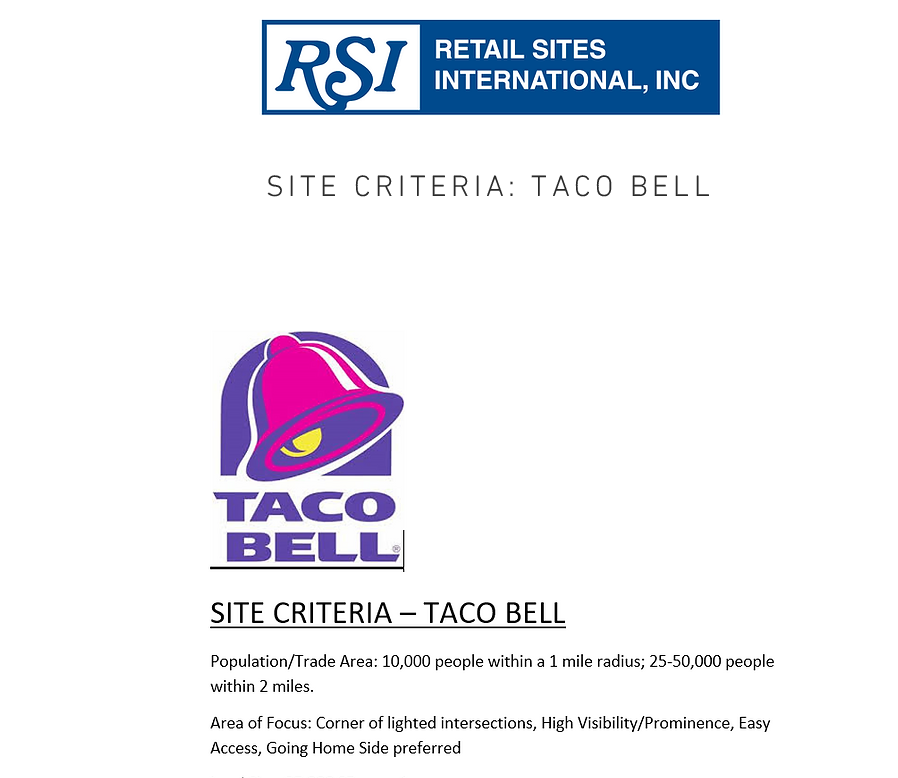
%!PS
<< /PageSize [898 778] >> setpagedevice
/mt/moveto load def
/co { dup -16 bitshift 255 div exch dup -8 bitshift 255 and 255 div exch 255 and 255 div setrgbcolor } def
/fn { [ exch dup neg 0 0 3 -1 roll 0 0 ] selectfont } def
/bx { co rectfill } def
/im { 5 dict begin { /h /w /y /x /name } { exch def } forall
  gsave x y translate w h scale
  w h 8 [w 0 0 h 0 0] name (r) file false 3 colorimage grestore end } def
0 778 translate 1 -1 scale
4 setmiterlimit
0 0 898 778 16#FFFFFF bx
(media/1.raw) 259 19 464 97 im
(media/2.raw) 208 330 567 448 im
/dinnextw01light-Light 30 fn
16#292929 co
266 196 mt 4.5 0 (SITE CRITERIA: TACO BELL) ashow
showpage
